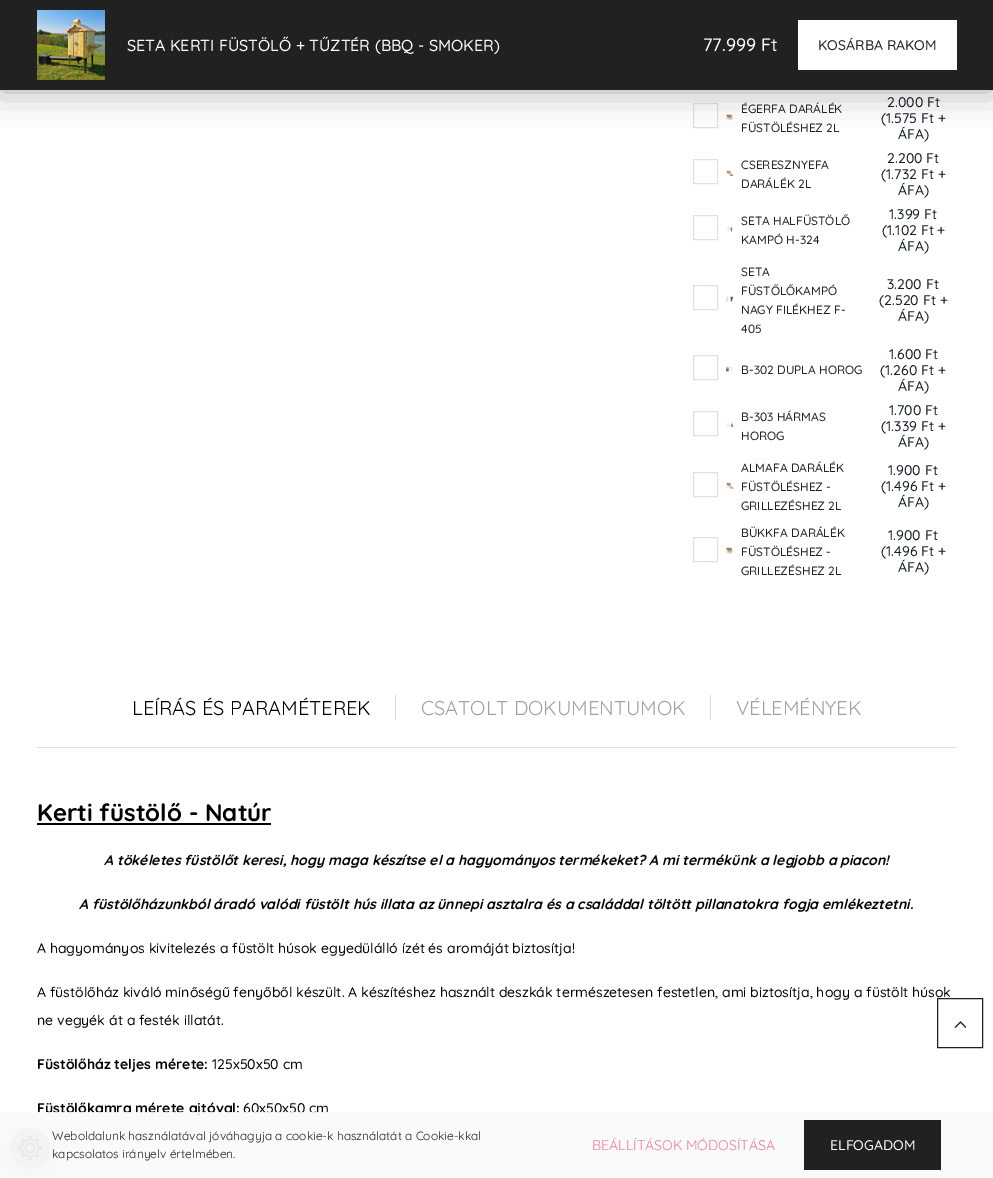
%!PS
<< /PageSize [993 1178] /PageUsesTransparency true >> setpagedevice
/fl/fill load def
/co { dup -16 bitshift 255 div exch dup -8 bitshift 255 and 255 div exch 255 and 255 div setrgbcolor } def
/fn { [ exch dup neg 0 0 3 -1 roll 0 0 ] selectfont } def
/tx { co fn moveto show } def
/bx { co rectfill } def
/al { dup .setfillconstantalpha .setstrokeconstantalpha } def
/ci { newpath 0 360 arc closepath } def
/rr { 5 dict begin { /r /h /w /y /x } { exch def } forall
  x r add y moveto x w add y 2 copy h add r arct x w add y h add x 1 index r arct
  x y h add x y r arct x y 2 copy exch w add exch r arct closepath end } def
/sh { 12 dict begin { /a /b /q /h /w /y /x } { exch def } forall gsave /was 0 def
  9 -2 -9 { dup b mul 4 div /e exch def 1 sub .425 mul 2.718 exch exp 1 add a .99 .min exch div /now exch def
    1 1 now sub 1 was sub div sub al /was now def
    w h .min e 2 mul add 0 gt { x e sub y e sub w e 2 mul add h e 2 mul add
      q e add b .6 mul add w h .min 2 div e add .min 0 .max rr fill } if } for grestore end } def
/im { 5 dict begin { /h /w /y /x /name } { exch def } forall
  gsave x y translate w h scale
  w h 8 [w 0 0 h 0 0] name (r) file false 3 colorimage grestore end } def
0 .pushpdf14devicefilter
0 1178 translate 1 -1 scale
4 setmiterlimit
0 0 993 1178 16#FFFFFF bx
16#DEE2E6 co
693.5 103.5 24 24 rectstroke
(media/2.raw) 726 114 7 6 im
16#000000 co
0 0 993 90 0 17 .35 sh
0 0 993 90 16#212121 bx
(media/1.raw) 37 10 68 70 im
798 20 159 50 16#FFFFFF bx
16#DEE2E6 co
693.5 159.5 24 24 rectstroke
(media/3.raw) 726 170 7 6 im
693.5 215.5 24 24 rectstroke
(media/4.raw) 726 226 7 6 im
693.5 285.5 24 24 rectstroke
(media/5.raw) 726 296 7 6 im
693.5 355.5 24 24 rectstroke
(media/6.raw) 726 366 7 6 im
693.5 411.5 24 24 rectstroke
(media/7.raw) 726 422 7 6 im
693.5 472.5 24 24 rectstroke
(media/8.raw) 726 482 7 7 im
693.5 537.5 24 24 rectstroke
(media/9.raw) 726 547 7 7 im
37 747 920 1 16#DEE2E6 bx
395 695 1 25 16#D8D8D8 bx
710 695 1 25 16#D8D8D8 bx
37 823 234 2 16#000000 bx
10 1136 40 40 20 8 .15 sh
16#B8BCBE co
30 1148 20 ci fl
(media/11.raw) 18 1136 24 24 im
(SETA KERTI FÜSTÖLŐ + TŰZTÉR \(BBQ - SMOKER\)) 127 51 /Quicksand-Medium 16 16#FFFFFF tx
(77.999 Ft) 703 51 /Quicksand-Medium 18 16#FFFFFF tx
(KOSÁRBA RAKOM) 818 50 /Quicksand-Medium 14 16#212121 tx
(ÉGERFA DARÁLÉK) 741 113 /Quicksand-Medium 12 16#212121 tx
(FÜSTÖLÉSHEZ 2L) 741 132 /Quicksand-Medium 12 16#212121 tx
(2.000 Ft) 887 107 /Quicksand-Medium 14 16#151E26 tx
(\(1.575 Ft +) 881 123 /Quicksand-Medium 14 16#151E26 tx
(ÁFA\)) 898 139 /Quicksand-Medium 14 16#151E26 tx
(CSERESZNYEFA) 741 169 /Quicksand-Medium 12 16#212121 tx
(DARÁLÉK 2L) 741 188 /Quicksand-Medium 12 16#212121 tx
(2.200 Ft) 887 163 /Quicksand-Medium 14 16#151E26 tx
(\(1.732 Ft +) 881 179 /Quicksand-Medium 14 16#151E26 tx
(ÁFA\)) 898 195 /Quicksand-Medium 14 16#151E26 tx
(SETA HALFÜSTÖLŐ) 741 225 /Quicksand-Medium 12 16#212121 tx
(KAMPÓ H-324) 741 244 /Quicksand-Medium 12 16#212121 tx
(1.399 Ft) 889 219 /Quicksand-Medium 14 16#151E26 tx
(\(1.102 Ft +) 882 235 /Quicksand-Medium 14 16#151E26 tx
(ÁFA\)) 898 251 /Quicksand-Medium 14 16#151E26 tx
(SETA) 741 276 /Quicksand-Medium 12 16#212121 tx
(FÜSTŐLŐKAMPÓ) 741 295 /Quicksand-Medium 12 16#212121 tx
(NAGY FILÉKHEZ F-) 741 314 /Quicksand-Medium 12 16#212121 tx
(405) 741 333 /Quicksand-Medium 12 16#212121 tx
(3.200 Ft) 887 289 /Quicksand-Medium 14 16#151E26 tx
(\(2.520 Ft +) 879 305 /Quicksand-Medium 14 16#151E26 tx
(ÁFA\)) 898 321 /Quicksand-Medium 14 16#151E26 tx
(B-302 DUPLA HOROG) 741 374 /Quicksand-Medium 12 16#212121 tx
(1.600 Ft) 889 359 /Quicksand-Medium 14 16#151E26 tx
(\(1.260 Ft +) 880 375 /Quicksand-Medium 14 16#151E26 tx
(ÁFA\)) 898 391 /Quicksand-Medium 14 16#151E26 tx
(B-303 HÁRMAS) 741 421 /Quicksand-Medium 12 16#212121 tx
(HOROG) 741 440 /Quicksand-Medium 12 16#212121 tx
(1.700 Ft) 889 415 /Quicksand-Medium 14 16#151E26 tx
(\(1.339 Ft +) 881 431 /Quicksand-Medium 14 16#151E26 tx
(ÁFA\)) 898 447 /Quicksand-Medium 14 16#151E26 tx
(ALMAFA DARÁLÉK) 741 472 /Quicksand-Medium 12 16#212121 tx
(FÜSTÖLÉSHEZ -) 741 491 /Quicksand-Medium 12 16#212121 tx
(GRILLEZÉSHEZ 2L) 741 510 /Quicksand-Medium 12 16#212121 tx
(1.900 Ft) 888 475 /Quicksand-Medium 14 16#151E26 tx
(\(1.496 Ft +) 881 491 /Quicksand-Medium 14 16#151E26 tx
(ÁFA\)) 898 507 /Quicksand-Medium 14 16#151E26 tx
(BÜKKFA DARÁLÉK) 741 537 /Quicksand-Medium 12 16#212121 tx
(FÜSTÖLÉSHEZ -) 741 556 /Quicksand-Medium 12 16#212121 tx
(GRILLEZÉSHEZ 2L) 741 575 /Quicksand-Medium 12 16#212121 tx
(1.900 Ft) 888 540 /Quicksand-Medium 14 16#151E26 tx
(\(1.496 Ft +) 881 556 /Quicksand-Medium 14 16#151E26 tx
(ÁFA\)) 898 572 /Quicksand-Medium 14 16#151E26 tx
(LEÍRÁS ÉS PARAMÉTEREK) 132 715 /Quicksand-Regular 20 16#000000 tx
(CSATOLT DOKUMENTUMOK) 421 715 /Quicksand-Regular 20 16#A1A1A1 tx
(VÉLEMÉNYEK) 736 715 /Quicksand-Regular 20 16#A1A1A1 tx
(Kerti füstölő - Natúr) 37 821 /Quicksand-Bold 24 16#000000 tx
(A tökéletes füstölőt keresi, hogy maga készítse el a hagyományos termékeket? A mi termékünk a legjobb a piacon!) 104 865 /Quicksand-BoldItalic 14 16#000000 tx
(A füstölőházunkból áradó valódi füstölt hús illata az ünnepi asztalra és a családdal töltött pillanatokra fogja emlékeztetni.) 79 909 /Quicksand-BoldItalic 14 16#000000 tx
(A hagyományos kivitelezés a füstölt húsok egyedülálló ízét és aromáját biztosítja!) 37 953 /Quicksand-Medium 14 16#000000 tx
(A füstölőház kiváló minőségű fenyőből készült. A készítéshez használt deszkák természetesen festetlen, ami biztosítja, hogy a füstölt húsok) 37 997 /Quicksand-Medium 14 16#000000 tx
(ne vegyék át a festék illatát.) 37 1025 /Quicksand-Medium 14 16#000000 tx
(Füstölőház teljes mérete:) 37 1069 /Quicksand-Bold 14 16#000000 tx
(125x50x50 cm) 212 1069 /Quicksand-Medium 14 16#000000 tx
(Füstölőkamra mérete ajtóval:) 37 1113 /Quicksand-Bold 14 16#000000 tx
(60x50x50 cm) 243 1113 /Quicksand-Medium 14 16#000000 tx
16#212121 co
937.5 998.5 45 49 rectstroke
(media/10.raw) 954 1021 12 7 im
0.9 al
0 1112 993 66 16#F8F9FA bx
1 al
(Weboldalunk használatával jóváhagyja a cookie-k használatát a Cookie-kkal) 52 1140 /Quicksand-Regular 12 16#212529 tx
(kapcsolatos irányelv értelmében.) 52 1158 /Quicksand-Regular 12 16#212529 tx
(BEÁLLÍTÁSOK MÓDOSÍTÁSA) 592 1150 /Quicksand-Regular 14 16#F67DA1 tx
804 1120 137 50 16#212121 bx
(ELFOGADOM) 830 1150 /Quicksand-Medium 14 16#FFFFFF tx
.poppdf14devicefilter showpage
